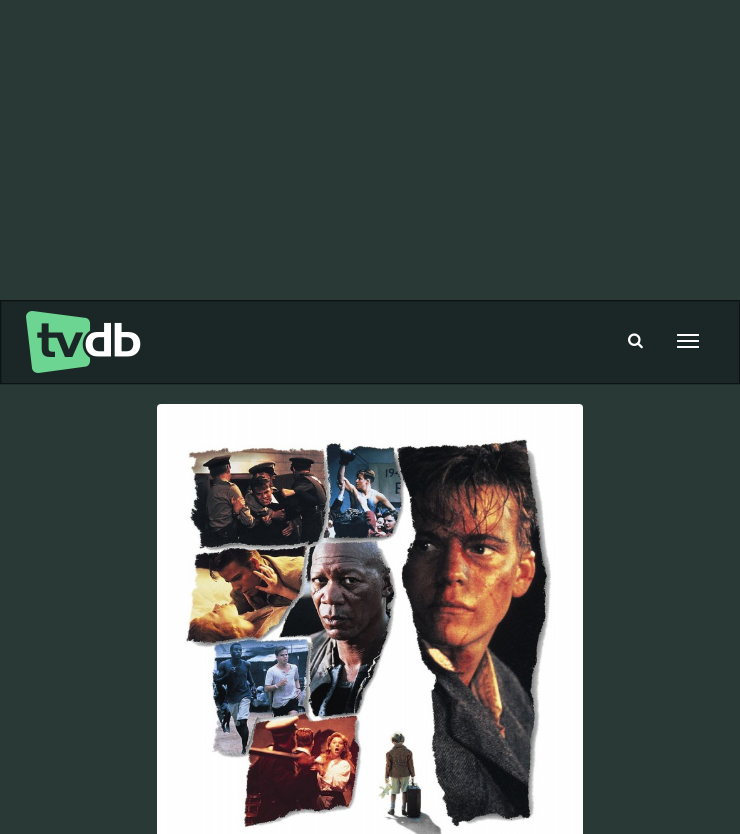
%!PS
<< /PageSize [740 834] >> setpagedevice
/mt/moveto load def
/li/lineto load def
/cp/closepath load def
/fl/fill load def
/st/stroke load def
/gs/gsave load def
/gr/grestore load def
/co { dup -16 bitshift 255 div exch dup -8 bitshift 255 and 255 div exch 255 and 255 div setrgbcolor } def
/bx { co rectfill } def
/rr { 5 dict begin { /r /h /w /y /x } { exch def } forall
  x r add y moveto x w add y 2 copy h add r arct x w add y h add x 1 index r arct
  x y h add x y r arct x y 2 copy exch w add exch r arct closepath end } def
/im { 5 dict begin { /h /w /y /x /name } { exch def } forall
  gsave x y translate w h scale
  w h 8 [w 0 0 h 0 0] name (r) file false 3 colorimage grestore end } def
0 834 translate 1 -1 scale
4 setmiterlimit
0 0 740 834 16#293A36 bx
16#1B2626 co
.5 300.5 mt 739.5 300.5 li 739.5 383.5 li .5 383.5 li cp gs fl gr
16#0D1313 co
st
(media/1.raw) 26 311 115 62 im
(media/2.raw) 628 333 15 16 im
16#FFFFFF co
677 334 22 2 1 rr fl
677 340 22 2 1 rr fl
677 346 22 2 1 rr fl
(media/3.raw) 157 404 426 430 im
showpage
